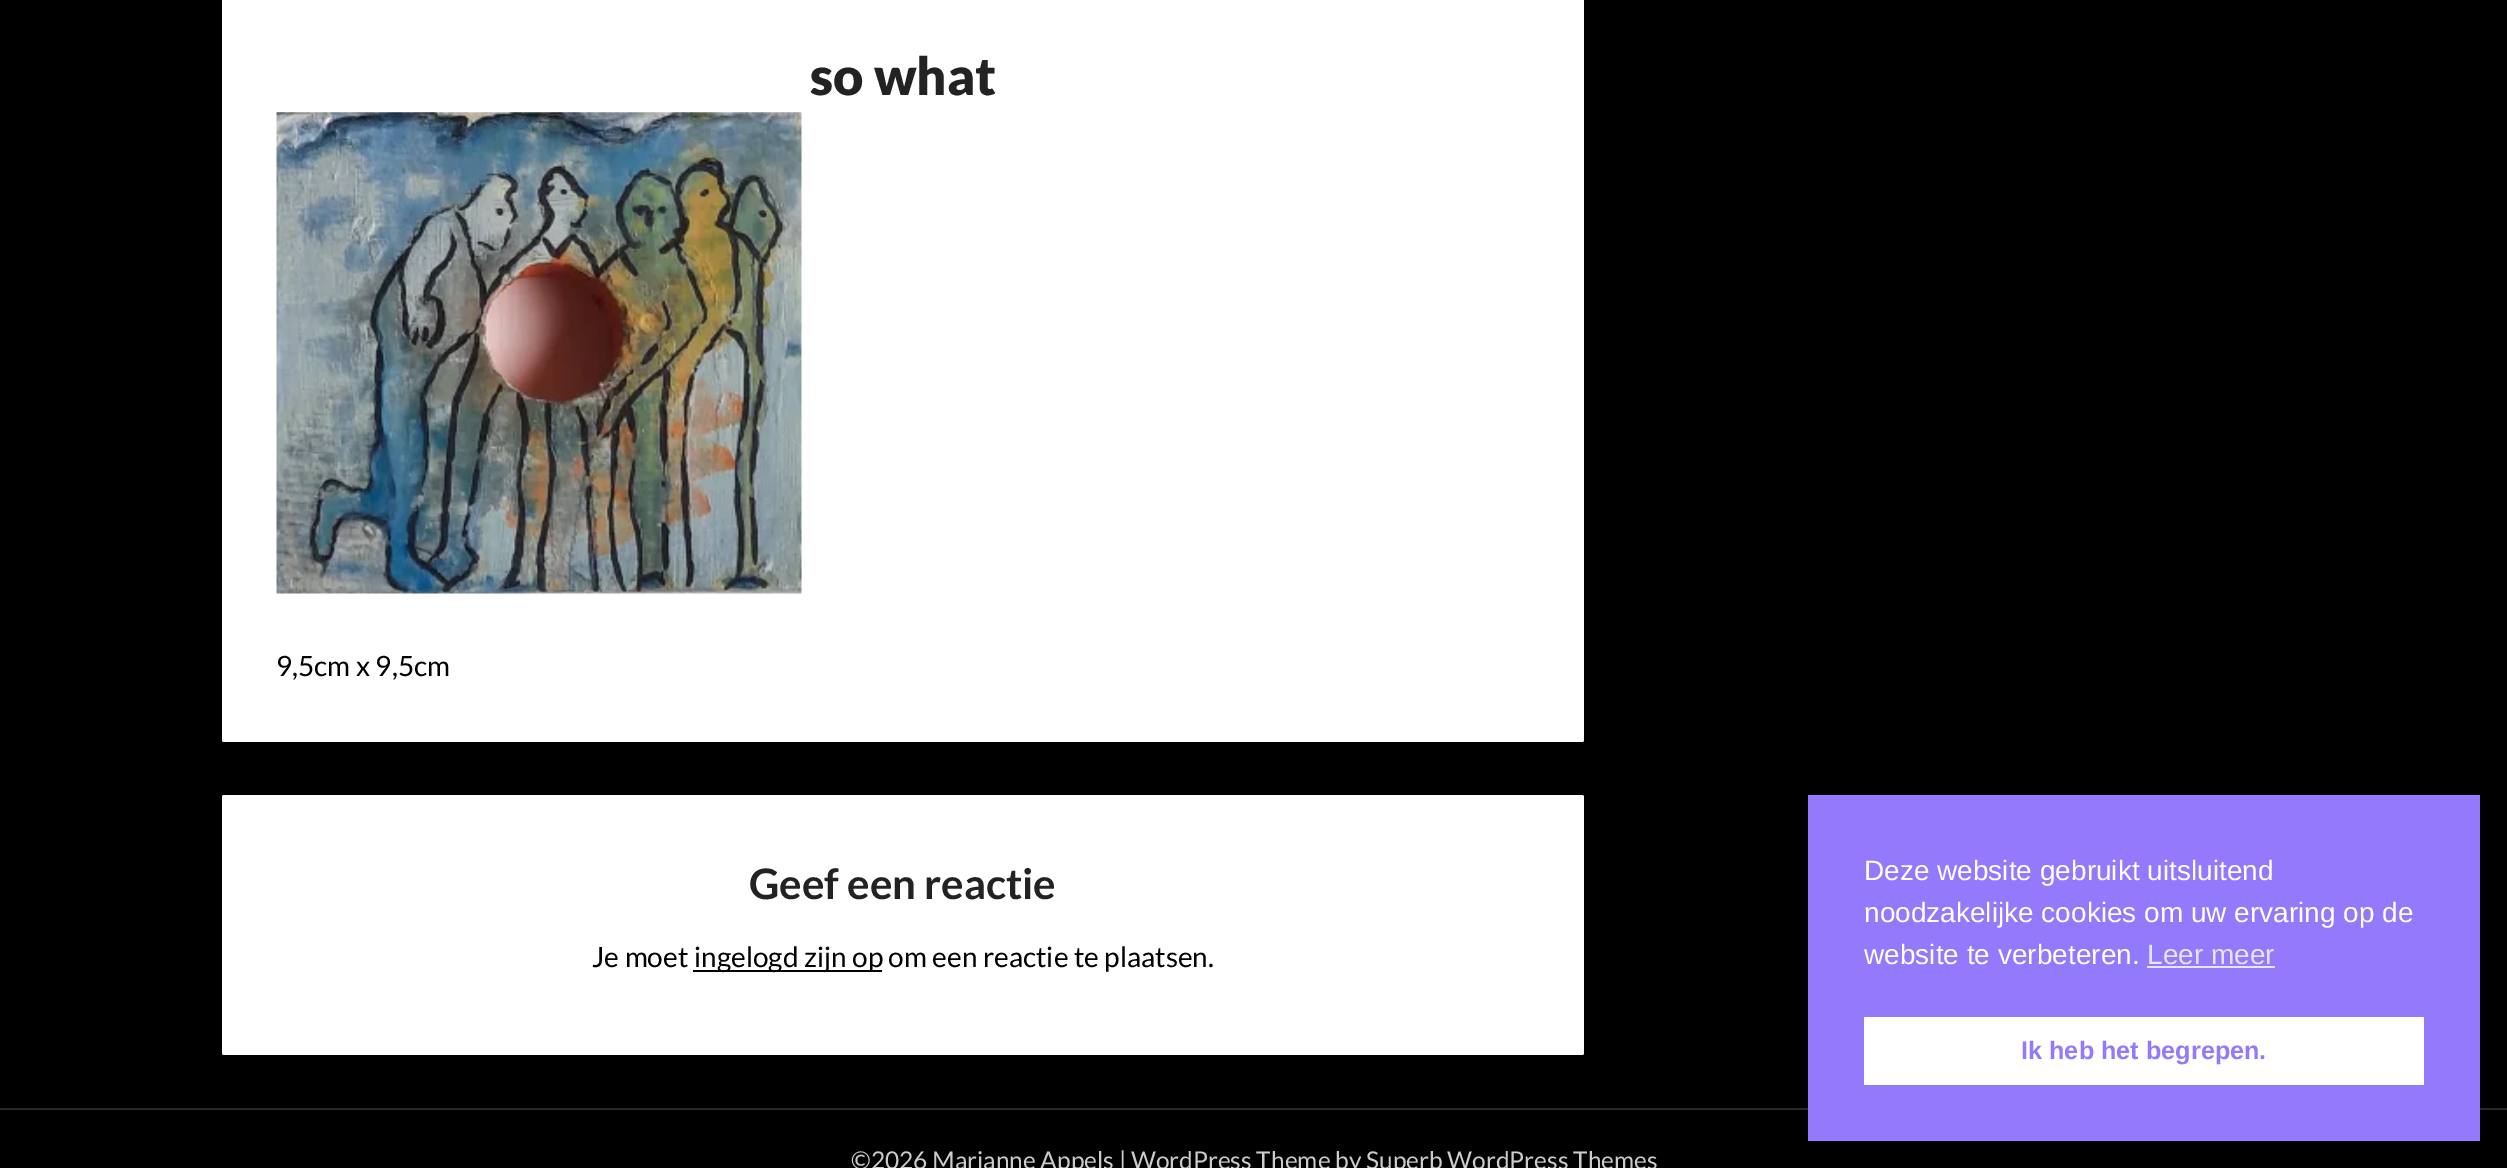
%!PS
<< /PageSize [2507 1168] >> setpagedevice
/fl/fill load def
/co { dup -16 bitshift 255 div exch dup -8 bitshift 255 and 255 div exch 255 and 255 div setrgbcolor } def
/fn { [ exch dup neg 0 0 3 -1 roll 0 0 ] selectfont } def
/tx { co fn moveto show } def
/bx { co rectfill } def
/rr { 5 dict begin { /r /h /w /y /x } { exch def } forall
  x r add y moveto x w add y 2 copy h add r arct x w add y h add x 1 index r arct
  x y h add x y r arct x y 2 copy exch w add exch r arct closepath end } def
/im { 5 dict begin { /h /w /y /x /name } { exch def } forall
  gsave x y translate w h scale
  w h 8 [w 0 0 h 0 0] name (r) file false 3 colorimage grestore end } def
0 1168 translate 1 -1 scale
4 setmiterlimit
0 0 2507 1168 16#000000 bx
16#FFFFFF co
222 -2 1362 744 2 rr fl
(media/1.raw) 276 112 526 482 im
222 795 1362 260 2 rr fl
693 970 189 2 16#000000 bx
0 1108 2507 2 16#292929 bx
1808 795 672 346 16#937AFC bx
2147 966 128 2 16#E9E4FE bx
1864 1017 560 68 16#FFFFFF bx
(so what) 810 95 /Lato-Black 52.5 16#222222 tx
(9,5cm x 9,5cm) 276 676 /Lato-Regular 28 16#000000 tx
(Geef een reactie) 749 899 /Lato-Bold 42 16#222222 tx
(Je moet) 592 967 /Lato-Regular 28 16#000000 tx
(ingelogd zijn op om een reactie te plaatsen.) 694 967 /Lato-Regular 28 16#000000 tx
(©2026 Marianne Appels | WordPress Theme by Superb WordPress Themes) 851 1169 /Lato-Regular 24.5 16#CCCCCC tx
(Deze website gebruikt uitsluitend) 1864 880 /LiberationSans-Regular 28 16#FFFFFF tx
(noodzakelijke cookies om uw ervaring op de) 1864 922 /LiberationSans-Regular 28 16#FFFFFF tx
(website te verbeteren.) 1864 964 /LiberationSans-Regular 28 16#FFFFFF tx
(Leer meer) 2147 964 /LiberationSans-Regular 28 16#E9E4FE tx
(Ik heb het begrepen.) 2021 1059 /LiberationSans-Bold 25.25 16#937AFC tx
showpage
